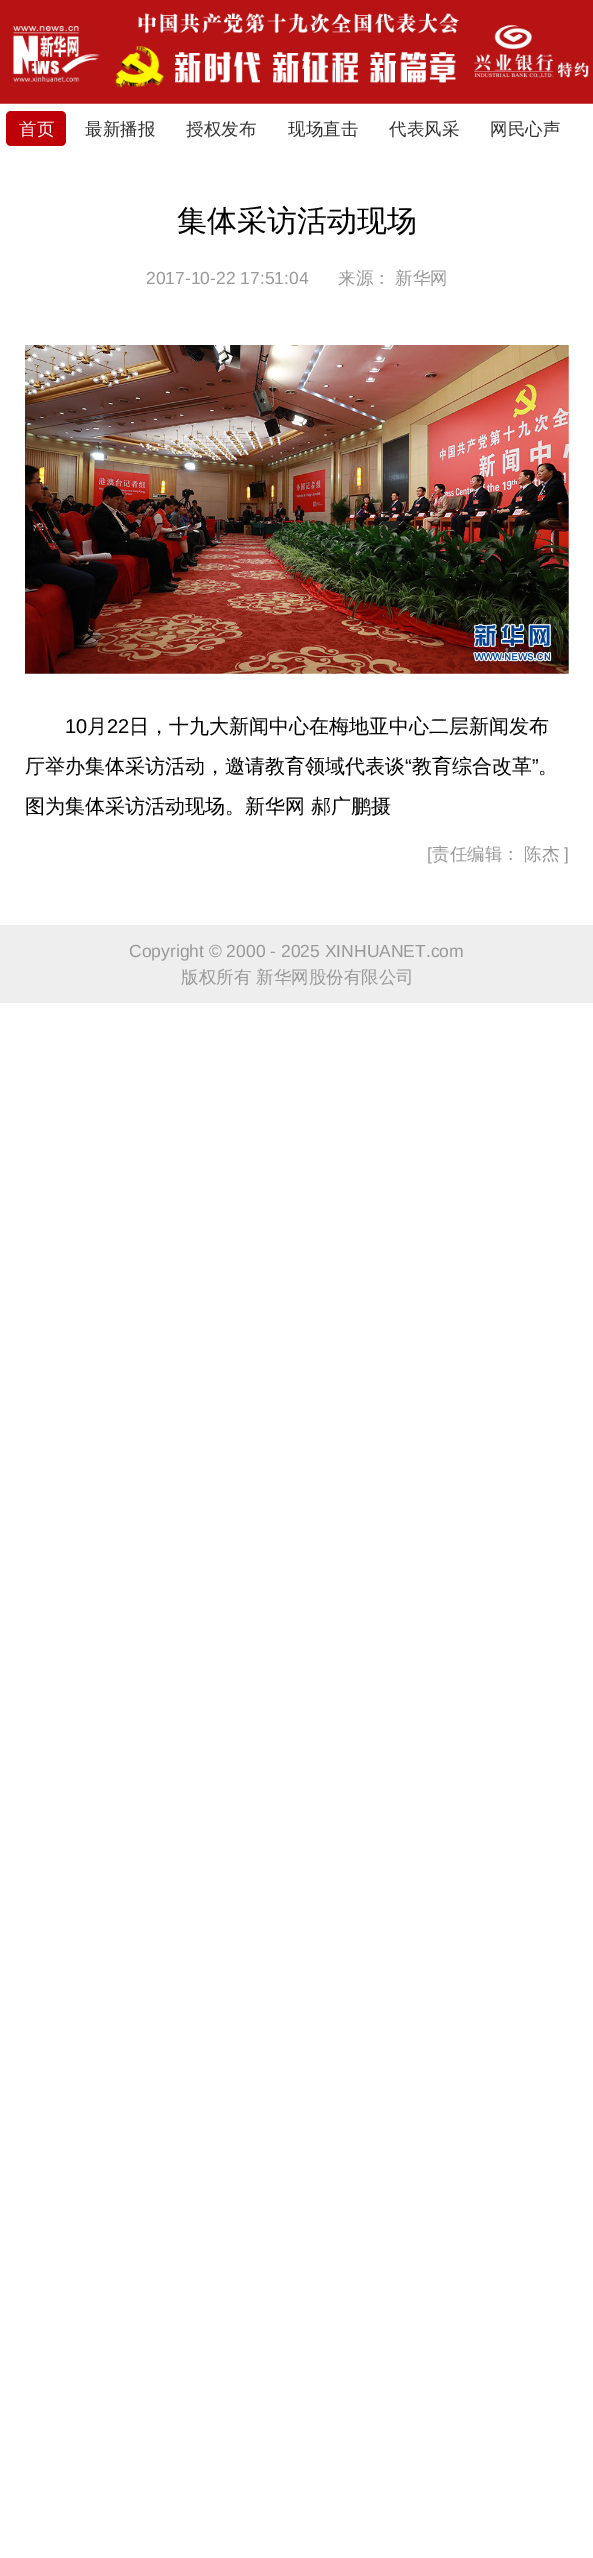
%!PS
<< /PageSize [593 2558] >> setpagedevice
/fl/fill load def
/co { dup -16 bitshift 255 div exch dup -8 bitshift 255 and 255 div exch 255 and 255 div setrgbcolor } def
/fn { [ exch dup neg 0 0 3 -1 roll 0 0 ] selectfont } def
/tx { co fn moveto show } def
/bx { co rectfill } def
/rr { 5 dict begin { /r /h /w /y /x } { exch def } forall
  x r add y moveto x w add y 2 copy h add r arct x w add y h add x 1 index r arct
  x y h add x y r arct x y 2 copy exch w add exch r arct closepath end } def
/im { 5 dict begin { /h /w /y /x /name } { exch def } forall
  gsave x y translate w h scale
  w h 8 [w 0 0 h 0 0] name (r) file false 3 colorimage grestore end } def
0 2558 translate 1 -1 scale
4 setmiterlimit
0 0 593 2558 16#FFFFFF bx
(media/1.raw) 0 0 593 104 im
16#BF0009 co
6 111 60 35 5 rr fl
(media/2.raw) 25 345 544 329 im
0 925 593 78 16#EEEEEE bx
(首页) 19 135 /WenQuanYiZenHei-Medium 17.5 16#FFFFFF tx
(最新播报) 85 135 /WenQuanYiZenHei-Medium 17.5 16#333333 tx
(授权发布) 186 135 /WenQuanYiZenHei-Medium 17.5 16#333333 tx
(现场直击) 288 135 /WenQuanYiZenHei-Medium 17.5 16#333333 tx
(代表风采) 389 135 /WenQuanYiZenHei-Medium 17.5 16#333333 tx
(网民心声) 490 135 /WenQuanYiZenHei-Medium 17.5 16#333333 tx
(集体采访活动现场) 177 231 /WenQuanYiZenHei-Medium 30 16#000000 tx
(2017-10-22 17:51:04) 146 284 /LiberationSans-Regular 17.5 16#999999 tx
(来源：) 338 284 /WenQuanYiZenHei-Medium 17.5 16#999999 tx
(新华网) 395 284 /WenQuanYiZenHei-Medium 17.5 16#999999 tx
(10) 65 733 /LiberationSans-Regular 20 16#000000 tx
(月) 87 733 /WenQuanYiZenHei-Medium 20 16#000000 tx
(22) 107 733 /LiberationSans-Regular 20 16#000000 tx
(日，十九大新闻中心在梅地亚中心二层新闻发布) 129 733 /WenQuanYiZenHei-Medium 20 16#000000 tx
(厅举办集体采访活动，邀请教育领域代表谈) 25 773 /WenQuanYiZenHei-Medium 20 16#000000 tx
(“) 405 773 /LiberationSans-Regular 20 16#000000 tx
(教育综合改革) 412 773 /WenQuanYiZenHei-Medium 20 16#000000 tx
(”) 532 773 /LiberationSans-Regular 20 16#000000 tx
(。) 538 773 /WenQuanYiZenHei-Medium 20 16#000000 tx
(图为集体采访活动现场。新华网 郝广鹏摄) 25 813 /WenQuanYiZenHei-Medium 20 16#000000 tx
([) 427 860 /LiberationSans-Regular 17.5 16#999999 tx
(责任编辑：) 432 860 /WenQuanYiZenHei-Medium 17.5 16#999999 tx
(陈杰) 524 860 /WenQuanYiZenHei-Medium 17.5 16#999999 tx
(]) 564 860 /LiberationSans-Regular 17.5 16#999999 tx
(Copyright © 2000 - 2025 XINHUANET.com) 129 957 /LiberationSans-Regular 17.5 16#999999 tx
(版权所有 新华网股份有限公司) 181 983 /WenQuanYiZenHei-Medium 17.5 16#999999 tx
showpage
